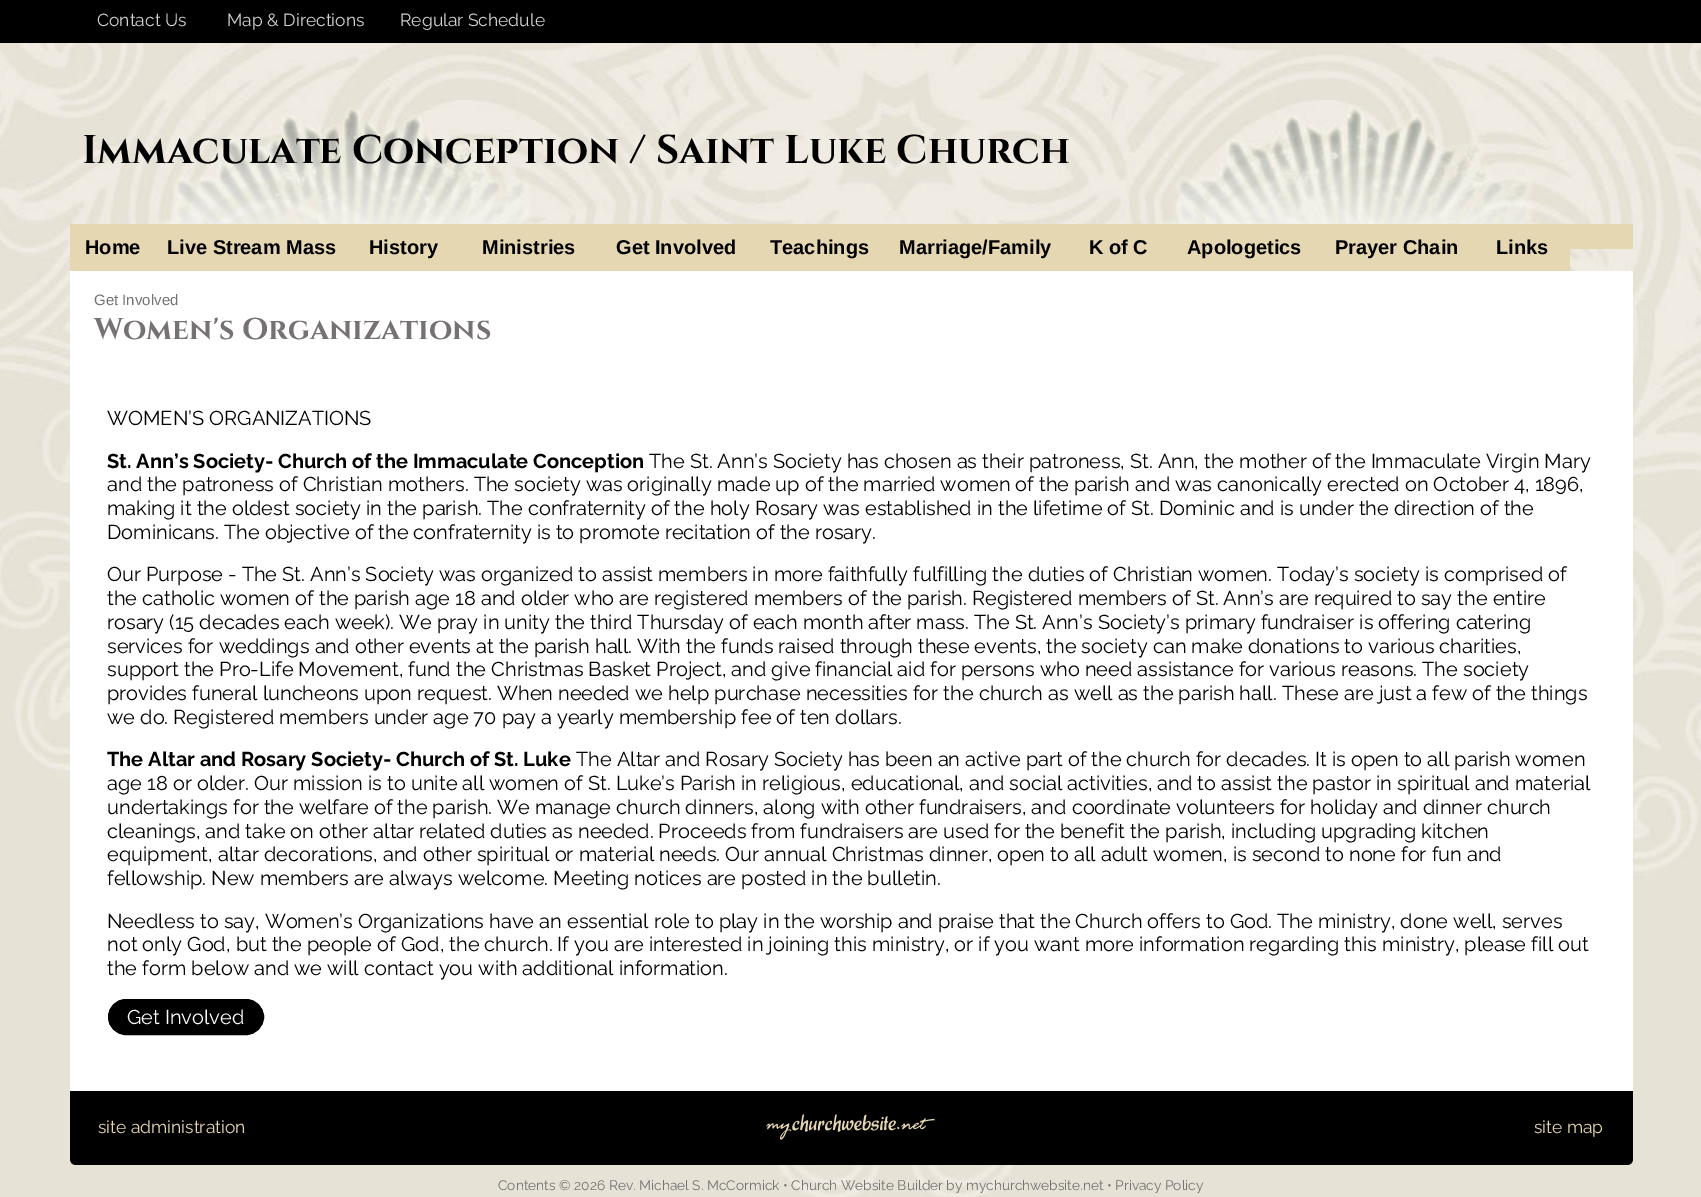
%!PS
<< /PageSize [1701 1197] >> setpagedevice
/mt/moveto load def
/li/lineto load def
/ct/curveto load def
/cp/closepath load def
/fl/fill load def
/st/stroke load def
/gs/gsave load def
/gr/grestore load def
/co { dup -16 bitshift 255 div exch dup -8 bitshift 255 and 255 div exch 255 and 255 div setrgbcolor } def
/fn { [ exch dup neg 0 0 3 -1 roll 0 0 ] selectfont } def
/tx { co fn moveto show } def
/bx { co rectfill } def
/rr { 5 dict begin { /r /h /w /y /x } { exch def } forall
  x r add y moveto x w add y 2 copy h add r arct x w add y h add x 1 index r arct
  x y h add x y r arct x y 2 copy exch w add exch r arct closepath end } def
/im { 5 dict begin { /h /w /y /x /name } { exch def } forall
  gsave x y translate w h scale
  w h 8 [w 0 0 h 0 0] name (r) file false 3 colorimage grestore end } def
0 1197 translate 1 -1 scale
4 setmiterlimit
0 0 1701 1197 16#FFFFFF bx
(media/1.raw) 0 43 1701 1154 im
0 0 1701 43 16#000000 bx
70 224 1500 47 16#E6D7B3 bx
1570 224 63 25 16#E6D7B3 bx
70 271 1563 820 16#FFFFFF bx
16#000000 co
108.5 999.5 155 35 17.5 rr gs fl gr
st
70 1091 mt 1633 1091 li 1633 1159 li 1633 1162.5 1630.5 1165 1627 1165 ct 76 1165 li 72.5 1165 70 1162.5 70 1159 ct cp fl
(media/2.raw) 766 1114 169 26 im
(Contact Us) 97 26 /Raleway-Regular 17.5 16#D3D3D5 tx
(Map & Directions) 227 26 /Raleway-Regular 17.5 16#D3D3D5 tx
(Regular Schedule) 400 26 /Raleway-Regular 17.5 16#D3D3D5 tx
(Immaculate Conception / Saint Luke Church) 82 163 /Cinzel-Bold 40 16#000000 tx
(Home) 85 254 /LiberationSans-Bold 20 16#000000 tx
(Live Stream Mass) 167 254 /LiberationSans-Bold 20 16#000000 tx
(History) 369 254 /LiberationSans-Bold 20 16#000000 tx
(Ministries) 482 254 /LiberationSans-Bold 20 16#000000 tx
(Get Involved) 616 254 /LiberationSans-Bold 20 16#000000 tx
(Teachings) 770 254 /LiberationSans-Bold 20 16#000000 tx
(Marriage/Family) 899 254 /LiberationSans-Bold 20 16#000000 tx
(K of C) 1089 254 /LiberationSans-Bold 20 16#000000 tx
(Apologetics) 1187 254 /LiberationSans-Bold 20 16#000000 tx
(Prayer Chain) 1335 254 /LiberationSans-Bold 20 16#000000 tx
(Links) 1496 254 /LiberationSans-Bold 20 16#000000 tx
(Get Involved) 94 305 /LiberationSans-Regular 15 16#767274 tx
(Women's Organizations) 94 339 /Cinzel-Bold 30 16#767274 tx
(WOMEN’S ORGANIZATIONS) 107 425 /Raleway-Regular 20 16#000000 tx
(St. Ann’s Society- Church of the Immaculate Conception) 107 468 /Raleway-Bold 20 16#000000 tx
(The St. Ann’s Society has chosen as their patroness, St. Ann, the mother of the Immaculate Virgin Mary) 649 468 /Raleway-Regular 20 16#000000 tx
(and the patroness of Christian mothers. The society was originally made up of the married women of the parish and was canonically erected on October 4, 1896,) 107 491 /Raleway-Regular 20 16#000000 tx
(making it the oldest society in the parish. The confraternity of the holy Rosary was established in the lifetime of St. Dominic and is under the direction of the) 107 515 /Raleway-Regular 20 16#000000 tx
(Dominicans. The objective of the confraternity is to promote recitation of the rosary.) 107 539 /Raleway-Regular 20 16#000000 tx
(Our Purpose - The St. Ann’s Society was organized to assist members in more faithfully fulfilling the duties of Christian women. Today’s society is comprised of) 107 581 /Raleway-Regular 20 16#000000 tx
(the catholic women of the parish age 18 and older who are registered members of the parish. Registered members of St. Ann’s are required to say the entire) 107 605 /Raleway-Regular 20 16#000000 tx
(rosary \(15 decades each week\). We pray in unity the third Thursday of each month after mass. The St. Ann’s Society’s primary fundraiser is offering catering) 107 629 /Raleway-Regular 20 16#000000 tx
(services for weddings and other events at the parish hall. With the funds raised through these events, the society can make donations to various charities,) 107 653 /Raleway-Regular 20 16#000000 tx
(support the Pro-Life Movement, fund the Christmas Basket Project, and give financial aid for persons who need assistance for various reasons. The society) 107 676 /Raleway-Regular 20 16#000000 tx
(provides funeral luncheons upon request. When needed we help purchase necessities for the church as well as the parish hall. These are just a few of the things) 107 700 /Raleway-Regular 20 16#000000 tx
(we do. Registered members under age 70 pay a yearly membership fee of ten dollars.) 107 724 /Raleway-Regular 20 16#000000 tx
(The Altar and Rosary Society- Church of St. Luke) 107 766 /Raleway-Bold 20 16#000000 tx
(The Altar and Rosary Society has been an active part of the church for decades. It is open to all parish women) 576 766 /Raleway-Regular 20 16#000000 tx
(age 18 or older. Our mission is to unite all women of St. Luke’s Parish in religious, educational, and social activities, and to assist the pastor in spiritual and material) 107 790 /Raleway-Regular 20 16#000000 tx
(undertakings for the welfare of the parish. We manage church dinners, along with other fundraisers, and coordinate volunteers for holiday and dinner church) 107 814 /Raleway-Regular 20 16#000000 tx
(cleanings, and take on other altar related duties as needed. Proceeds from fundraisers are used for the benefit the parish, including upgrading kitchen) 107 838 /Raleway-Regular 20 16#000000 tx
(equipment, altar decorations, and other spiritual or material needs. Our annual Christmas dinner, open to all adult women, is second to none for fun and) 107 861 /Raleway-Regular 20 16#000000 tx
(fellowship. New members are always welcome. Meeting notices are posted in the bulletin.) 107 885 /Raleway-Regular 20 16#000000 tx
(Needless to say, Women’s Organizations have an essential role to play in the worship and praise that the Church offers to God. The ministry, done well, serves) 107 928 /Raleway-Regular 20 16#000000 tx
(not only God, but the people of God, the church. If you are interested in joining this ministry, or if you want more information regarding this ministry, please fill out) 107 951 /Raleway-Regular 20 16#000000 tx
(the form below and we will contact you with additional information.) 107 975 /Raleway-Regular 20 16#000000 tx
(Get Involved) 127 1024 /Raleway-Regular 20 16#FFFFFF tx
(site administration) 98 1133 /Raleway-Regular 17.5 16#E6D7B3 tx
(site map) 1534 1133 /Raleway-Regular 17.5 16#E6D7B3 tx
(Contents © 2026 Rev. Michael S. McCormick • Church Website Builder by mychurchwebsite.net • Privacy Policy) 498 1190 /Raleway-Regular 13.75 16#767274 tx
showpage
